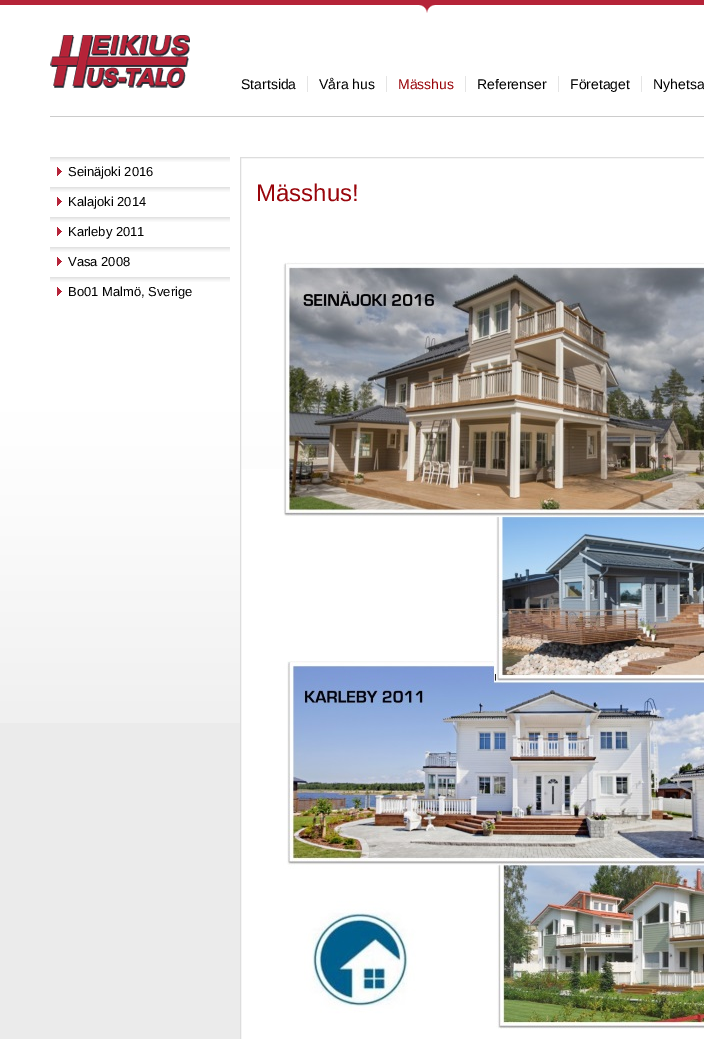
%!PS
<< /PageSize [704 1039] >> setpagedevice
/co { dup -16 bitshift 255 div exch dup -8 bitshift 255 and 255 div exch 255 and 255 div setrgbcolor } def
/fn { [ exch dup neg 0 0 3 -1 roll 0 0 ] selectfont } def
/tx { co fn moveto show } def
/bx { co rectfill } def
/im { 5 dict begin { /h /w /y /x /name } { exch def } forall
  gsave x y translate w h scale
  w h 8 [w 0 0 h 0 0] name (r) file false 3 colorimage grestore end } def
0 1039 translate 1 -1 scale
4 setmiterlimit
0 0 704 1039 16#EBEBEB bx
(media/1.raw) 0 0 704 723 im
(media/2.raw) 50 35 140 53 im
307 76 1 16 16#E5E5E5 bx
386 76 1 16 16#E5E5E5 bx
(media/3.raw) 419 5 16 8 im
465 76 1 16 16#E5E5E5 bx
558 76 1 16 16#E5E5E5 bx
641 76 1 16 16#E5E5E5 bx
50 116 654 1 16#CCCCCC bx
(media/4.raw) 50 157 180 5 im
(media/5.raw) 57 167 5 9 im
(media/4.raw) 50 187 180 5 im
(media/5.raw) 57 197 5 9 im
(media/4.raw) 50 217 180 5 im
(media/5.raw) 57 227 5 9 im
(media/4.raw) 50 247 180 5 im
(media/5.raw) 57 257 5 9 im
(media/4.raw) 50 277 180 5 im
(media/5.raw) 57 287 5 9 im
241 469 463 570 16#FFFFFF bx
16#DDDDDD co
240.5 157.5 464 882 rectstroke
(media/6.raw) 283 262 421 767 im
(Startsida) 241 89 /LiberationSans-Regular 14 16#000000 tx
(Våra hus) 319 89 /LiberationSans-Regular 14 16#000000 tx
(Mässhus) 398 89 /LiberationSans-Regular 14 16#99050B tx
(Referenser) 477 89 /LiberationSans-Regular 14 16#000000 tx
(Företaget) 570 89 /LiberationSans-Regular 14 16#000000 tx
(Nyhetsa) 653 89 /LiberationSans-Regular 14 16#000000 tx
(Seinäjoki 2016) 68 176 /LiberationSans-Regular 13 16#000000 tx
(Kalajoki 2014) 68 206 /LiberationSans-Regular 13 16#000000 tx
(Karleby 2011) 68 236 /LiberationSans-Regular 13 16#000000 tx
(Vasa 2008) 68 266 /LiberationSans-Regular 13 16#000000 tx
(Bo01 Malmö, Sverige) 68 296 /LiberationSans-Regular 13 16#000000 tx
(Mässhus!) 256 201 /LiberationSans-Regular 24 16#99050B tx
showpage
